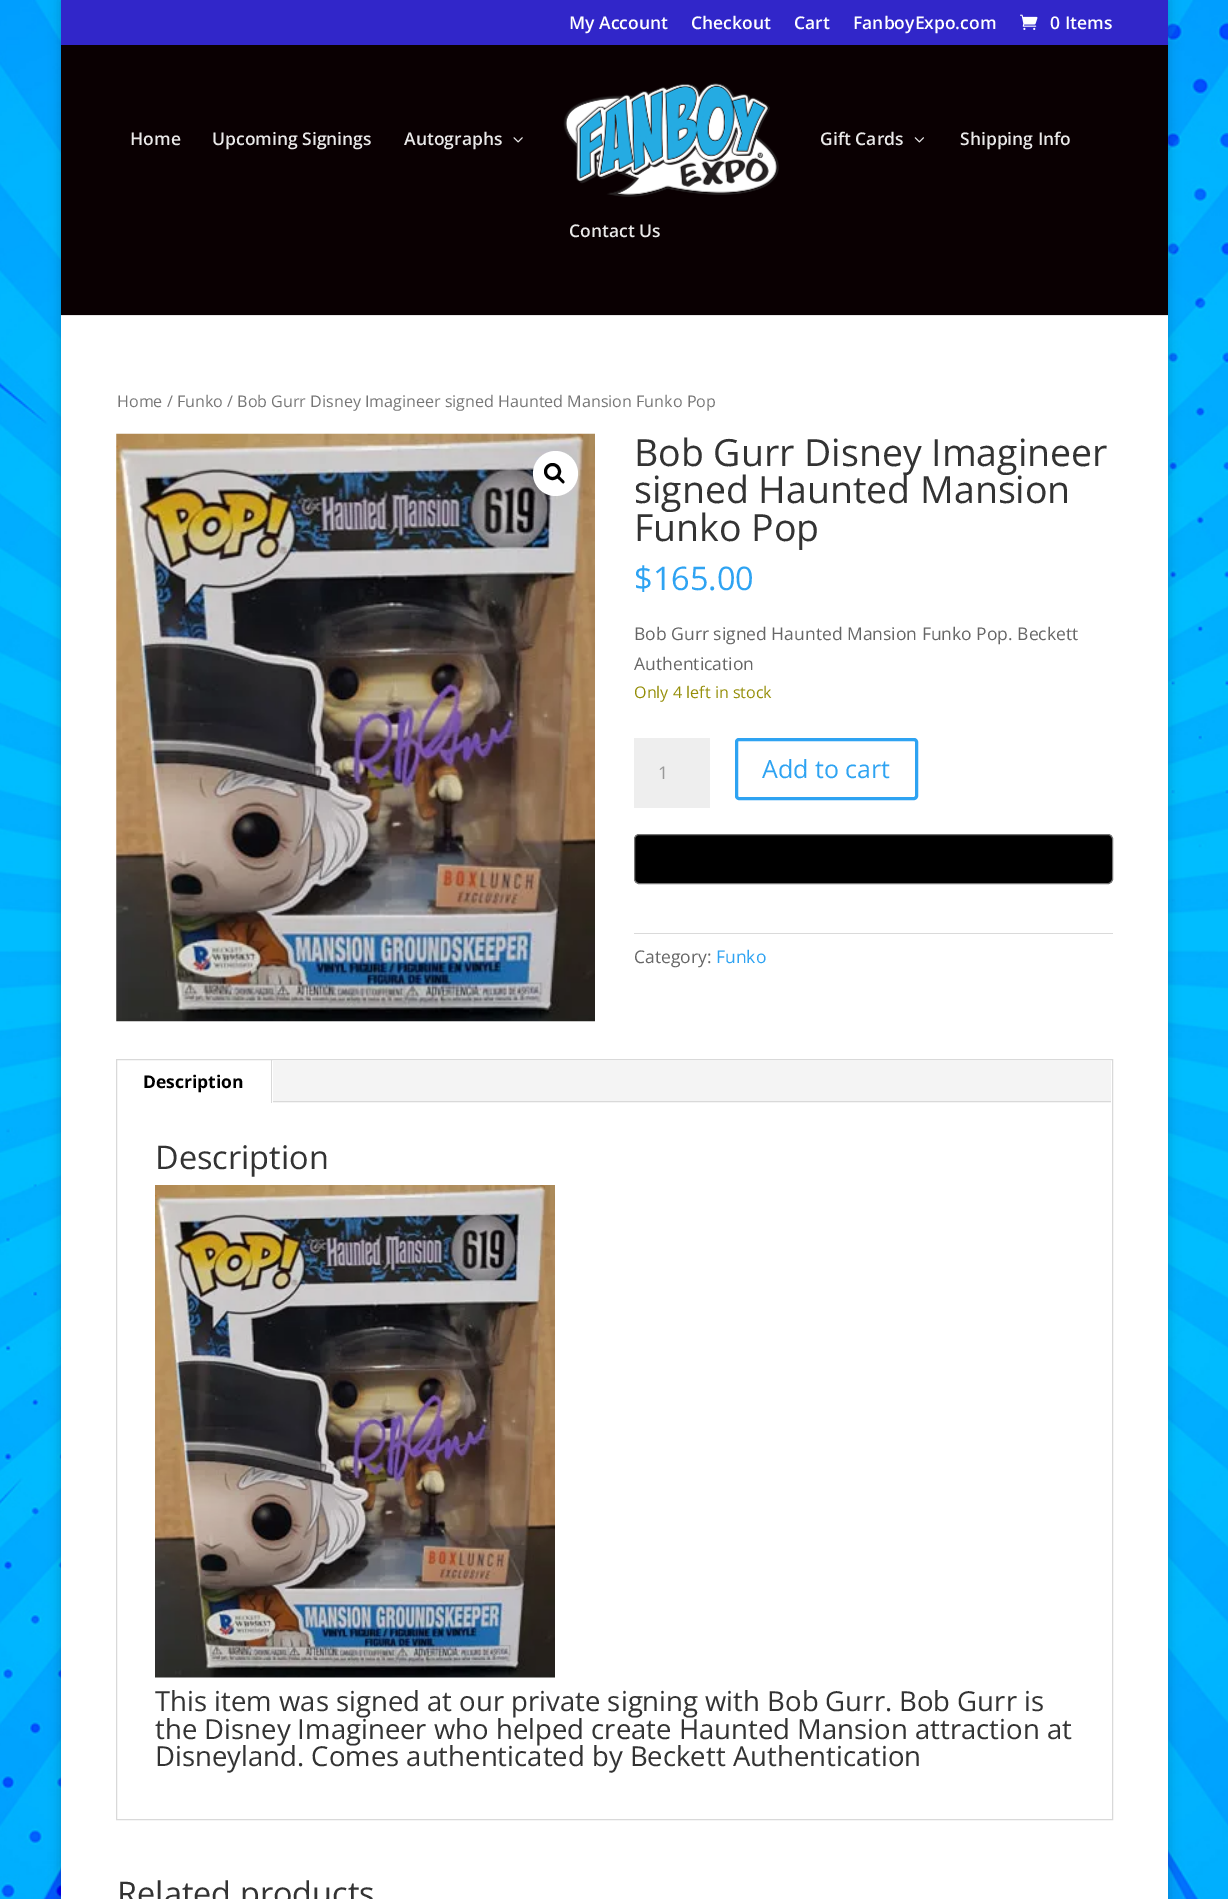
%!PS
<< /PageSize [1228 1899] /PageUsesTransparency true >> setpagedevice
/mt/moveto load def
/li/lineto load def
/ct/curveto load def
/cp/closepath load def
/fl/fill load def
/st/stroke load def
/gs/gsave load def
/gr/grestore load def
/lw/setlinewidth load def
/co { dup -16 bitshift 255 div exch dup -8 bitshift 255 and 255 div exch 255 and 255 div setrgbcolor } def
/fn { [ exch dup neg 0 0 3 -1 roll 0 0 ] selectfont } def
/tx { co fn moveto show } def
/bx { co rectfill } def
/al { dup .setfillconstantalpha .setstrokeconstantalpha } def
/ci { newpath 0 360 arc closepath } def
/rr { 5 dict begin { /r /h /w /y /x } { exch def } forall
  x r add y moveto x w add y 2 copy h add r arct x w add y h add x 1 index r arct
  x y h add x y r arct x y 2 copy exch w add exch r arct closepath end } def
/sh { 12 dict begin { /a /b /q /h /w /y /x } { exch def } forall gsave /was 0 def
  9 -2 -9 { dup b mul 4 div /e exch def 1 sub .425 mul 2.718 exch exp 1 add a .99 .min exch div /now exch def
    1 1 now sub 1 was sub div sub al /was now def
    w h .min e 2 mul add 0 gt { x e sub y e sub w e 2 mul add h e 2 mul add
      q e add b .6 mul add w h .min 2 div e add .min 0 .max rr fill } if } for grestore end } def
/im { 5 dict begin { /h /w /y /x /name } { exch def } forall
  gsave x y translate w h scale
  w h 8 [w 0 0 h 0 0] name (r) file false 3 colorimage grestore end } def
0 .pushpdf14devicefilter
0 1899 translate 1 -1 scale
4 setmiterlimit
0 0 1228 1899 16#FFFFFF bx
(media/1.raw) 0 0 1228 1899 im
16#000000 co
61 0 1107 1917 0 6 .2 sh
61 0 1107 45 16#3126C9 bx
(media/2.raw) 1020 14 18 16 im
16#E6E6E6 co
61 46 mt 61 316 li 1168 316 li 1168 46 li 1168 315 li 61 315 li cp fl
61 45 1107 270 16#0A0002 bx
(media/3.raw) 513 137 10 6 im
(media/4.raw) 563 83 216 114 im
(media/5.raw) 914 137 10 6 im
61 316 1107 1583 16#FFFFFF bx
(media/6.raw) 116 433 479 589 im
555.5 473.5 22.5 ci fl
16#000000 co
3 lw
552.5 471.5 7 ci st
557 476 mt 558.5 474.5 561 478 561.5 478.5 ct 562.5 479.5 565.5 481.5 564 483 ct 563 484.5 560.5 481 560 480.5 ct 559 479.5 555.5 477.5 557 476 ct cp fl
634 738 76 70 16#EEEEEE bx
16#2EA3F2 co
736.5 739.5 180 59 2.5 rr st
16#000000 co
634.5 834.5 478 49 4.5 rr gs fl gr
16#757575 co
1 lw
st
634 933 479 1 16#DADADA bx
16#D9D9D9 co
116.5 1059.5 996 760 rectstroke
273 1060 838 43 16#F4F4F4 bx
271 1060 1 43 16#D9D9D9 bx
273 1101 838 1 16#D9D9D9 bx
(media/7.raw) 155 1185 400 493 im
(My Account) 569 29 /OpenSans-SemiBold 17.5 16#FFFFFF tx
(Checkout) 691 29 /OpenSans-SemiBold 17.5 16#FFFFFF tx
(Cart) 794 29 /OpenSans-SemiBold 17.5 16#FFFFFF tx
(FanboyExpo.com) 853 29 /OpenSans-SemiBold 17.5 16#FFFFFF tx
(0 Items) 1050 29 /OpenSans-SemiBold 17.5 16#FFFFFF tx
(Home) 130 145 /OpenSans-SemiBold 17.5 16#E9E8E8 tx
(Upcoming Signings) 212 145 /OpenSans-SemiBold 17.5 16#E9E8E8 tx
(Autographs) 404 145 /OpenSans-SemiBold 17.5 16#E9E8E8 tx
(Gift Cards) 820 145 /OpenSans-SemiBold 17.5 16#E9E8E8 tx
(Shipping Info) 960 145 /OpenSans-SemiBold 17.5 16#E9E8E8 tx
(Contact Us) 569 237 /OpenSans-SemiBold 17.5 16#E9E8E8 tx
(Home / Funko / Bob Gurr Disney Imagineer signed Haunted Mansion Funko Pop) 117 407 /OpenSans-Regular 16.1 16#767676 tx
(Bob Gurr Disney Imagineer) 634 466 /OpenSans-Regular 37.5 16#333333 tx
(signed Haunted Mansion) 634 503 /OpenSans-Regular 37.5 16#333333 tx
(Funko Pop) 634 541 /OpenSans-Regular 37.5 16#333333 tx
($165.00) 634 590 /OpenSans-Regular 32.5 16#2EA3F2 tx
(Bob Gurr signed Haunted Mansion Funko Pop. Beckett) 634 640 /OpenSans-Regular 17.5 16#666666 tx
(Authentication) 634 670 /OpenSans-Regular 17.5 16#666666 tx
(Only 4 left in stock) 634 698 /OpenSans-Regular 16.1 16#958E09 tx
(1) 658 779 /OpenSans-Regular 17.5 16#999999 tx
(Add to cart) 762 778 /OpenSans-Regular 25 16#2EA3F2 tx
(Category:) 634 963 /OpenSans-Regular 17.5 16#666666 tx
(Funko) 716 963 /OpenSans-Regular 17.5 16#2EA3F2 tx
(Description) 143 1088 /OpenSans-Bold 17.5 16#000000 tx
(Description) 155 1169 /OpenSans-Regular 32.5 16#333333 tx
(This item was signed at our private signing with Bob Gurr. Bob Gurr is) 155 1711 /OpenSans-Regular 27.5 16#333333 tx
(the Disney Imagineer who helped create Haunted Mansion attraction at) 155 1739 /OpenSans-Regular 27.5 16#333333 tx
(Disneyland. Comes authenticated by Beckett Authentication) 155 1766 /OpenSans-Regular 27.5 16#333333 tx
(Related products) 117 1905 /OpenSans-Regular 32.5 16#333333 tx
.poppdf14devicefilter showpage
